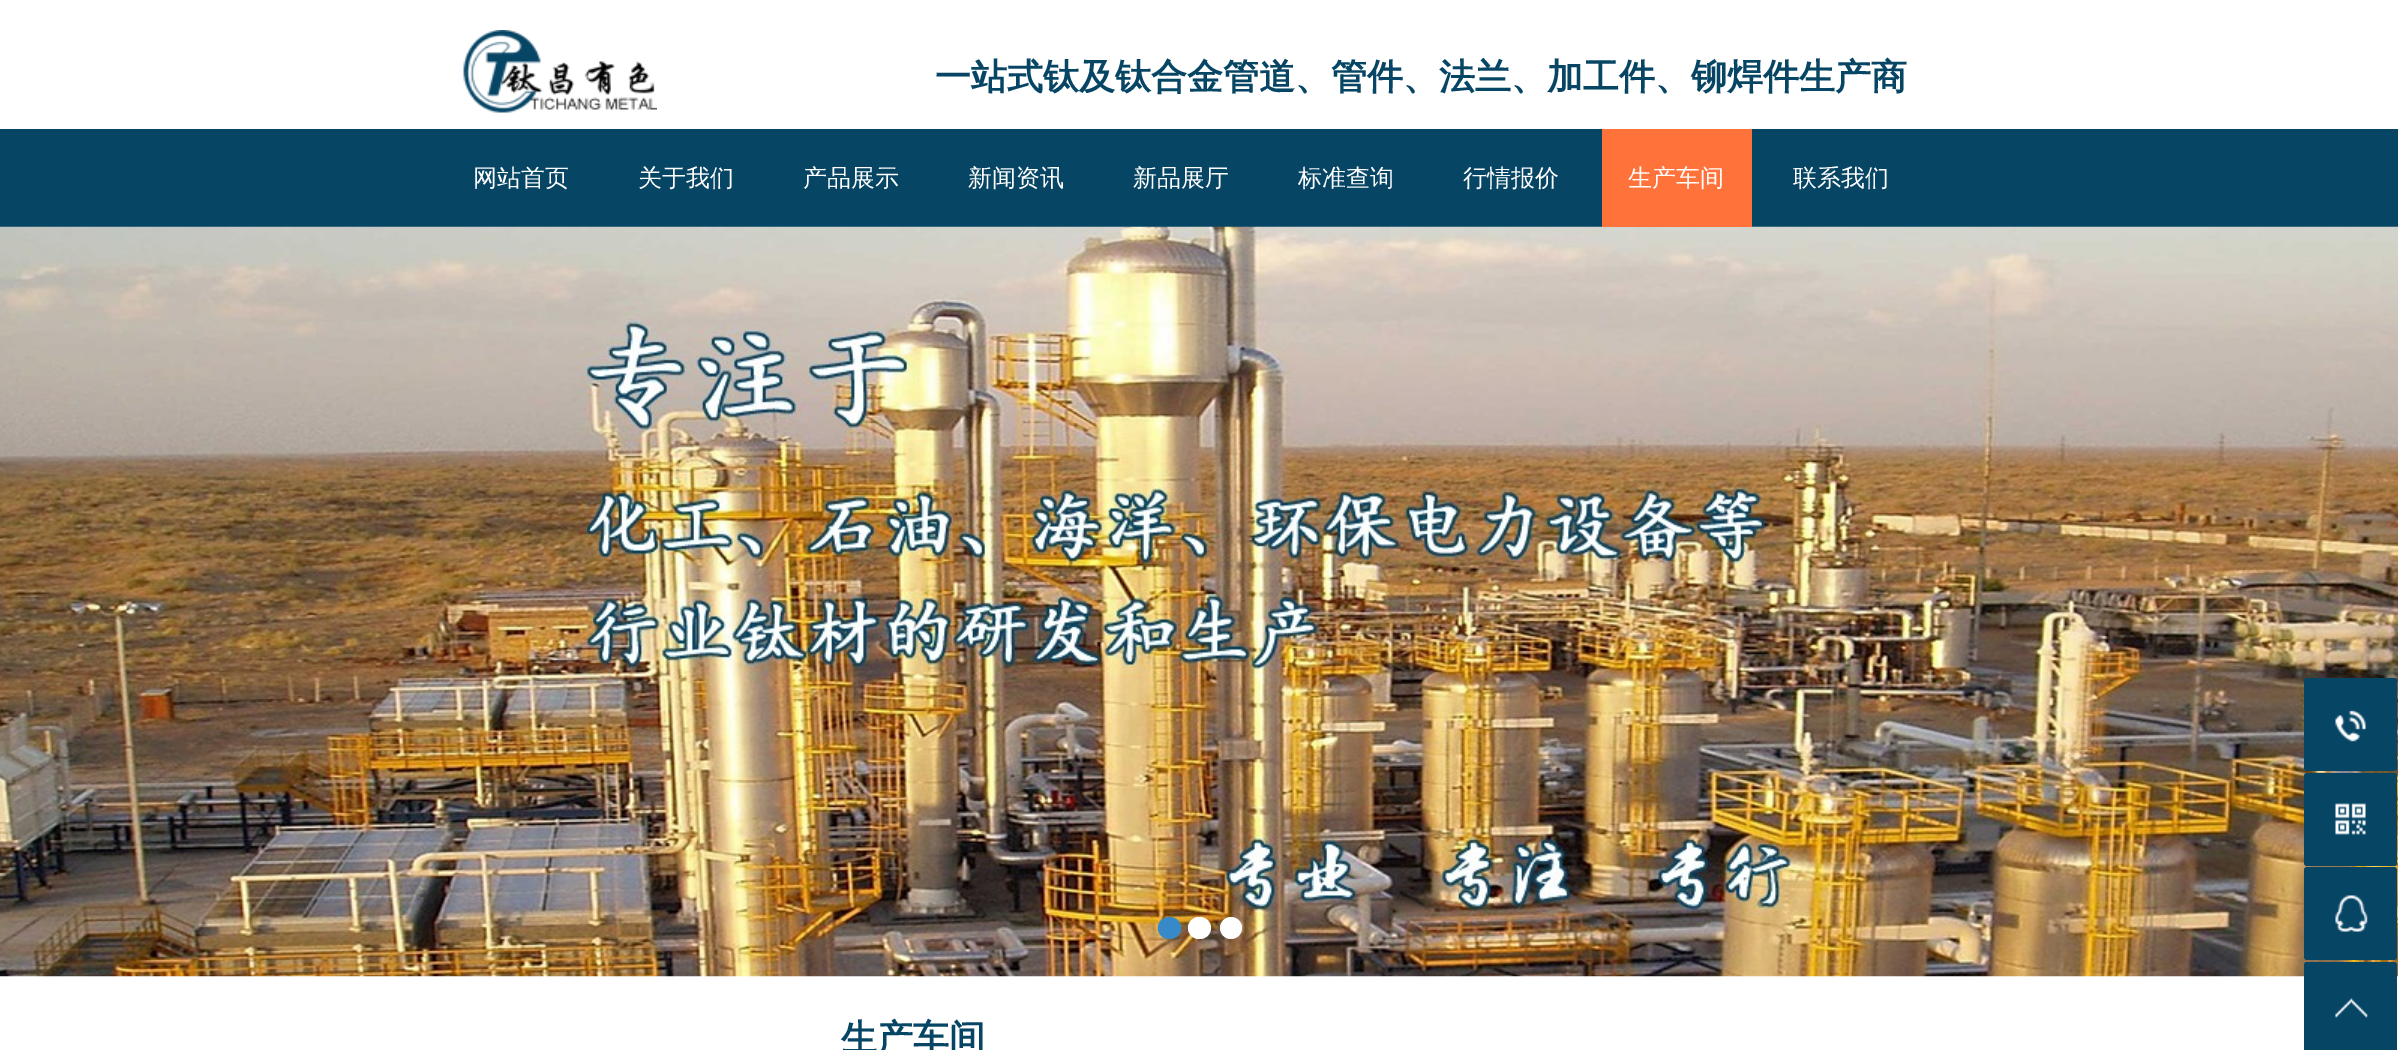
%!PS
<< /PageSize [2398 1050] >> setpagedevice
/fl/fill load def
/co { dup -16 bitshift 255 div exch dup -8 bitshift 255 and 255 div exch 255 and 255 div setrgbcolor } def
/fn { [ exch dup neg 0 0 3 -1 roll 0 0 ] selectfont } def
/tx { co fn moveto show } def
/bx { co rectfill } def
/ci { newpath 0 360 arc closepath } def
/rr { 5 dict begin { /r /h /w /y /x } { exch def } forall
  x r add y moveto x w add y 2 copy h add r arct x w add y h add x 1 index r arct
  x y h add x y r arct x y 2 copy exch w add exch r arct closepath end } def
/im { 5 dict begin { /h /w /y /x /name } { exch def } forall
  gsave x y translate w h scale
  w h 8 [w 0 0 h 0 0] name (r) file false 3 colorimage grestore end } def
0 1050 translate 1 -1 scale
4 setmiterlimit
0 0 2398 1050 16#FFFFFF bx
(media/1.raw) 463 30 194 83 im
0 129 2398 98 16#074565 bx
(media/2.raw) 0 226 2398 751 im
1602 129 150 98 16#FF733B bx
16#3889C7 co
1158 917 23 22 11 rr fl
16#FFFFFF co
1188 917 23 22 11 rr fl
1231 928 11 ci fl
16#074565 co
2304 678 93 93 3 rr fl
(media/3.raw) 2335 710 31 32 im
2304 773 93 93 3 rr fl
(media/4.raw) 2335 803 31 32 im
2304 867 93 93 3 rr fl
(media/5.raw) 2335 895 33 37 im
2304 962 93 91 3 rr fl
(media/6.raw) 2335 998 33 20 im
(一站式钛及钛合金管道、管件、法兰、加工件、铆焊件生产商) 935 89 /WenQuanYiZenHei-Bold 36 16#074565 tx
(网站首页) 473 186 /WenQuanYiZenHei-Medium 24 16#FFFFFF tx
(关于我们) 638 186 /WenQuanYiZenHei-Medium 24 16#FFFFFF tx
(产品展示) 803 186 /WenQuanYiZenHei-Medium 24 16#FFFFFF tx
(新闻资讯) 968 186 /WenQuanYiZenHei-Medium 24 16#FFFFFF tx
(新品展厅) 1133 186 /WenQuanYiZenHei-Medium 24 16#FFFFFF tx
(标准查询) 1298 186 /WenQuanYiZenHei-Medium 24 16#FFFFFF tx
(行情报价) 1463 186 /WenQuanYiZenHei-Medium 24 16#FFFFFF tx
(生产车间) 1628 186 /WenQuanYiZenHei-Medium 24 16#FFFFFF tx
(联系我们) 1793 186 /WenQuanYiZenHei-Medium 24 16#FFFFFF tx
(生产车间) 841 1050 /WenQuanYiZenHei-Bold 36 16#074565 tx
showpage
